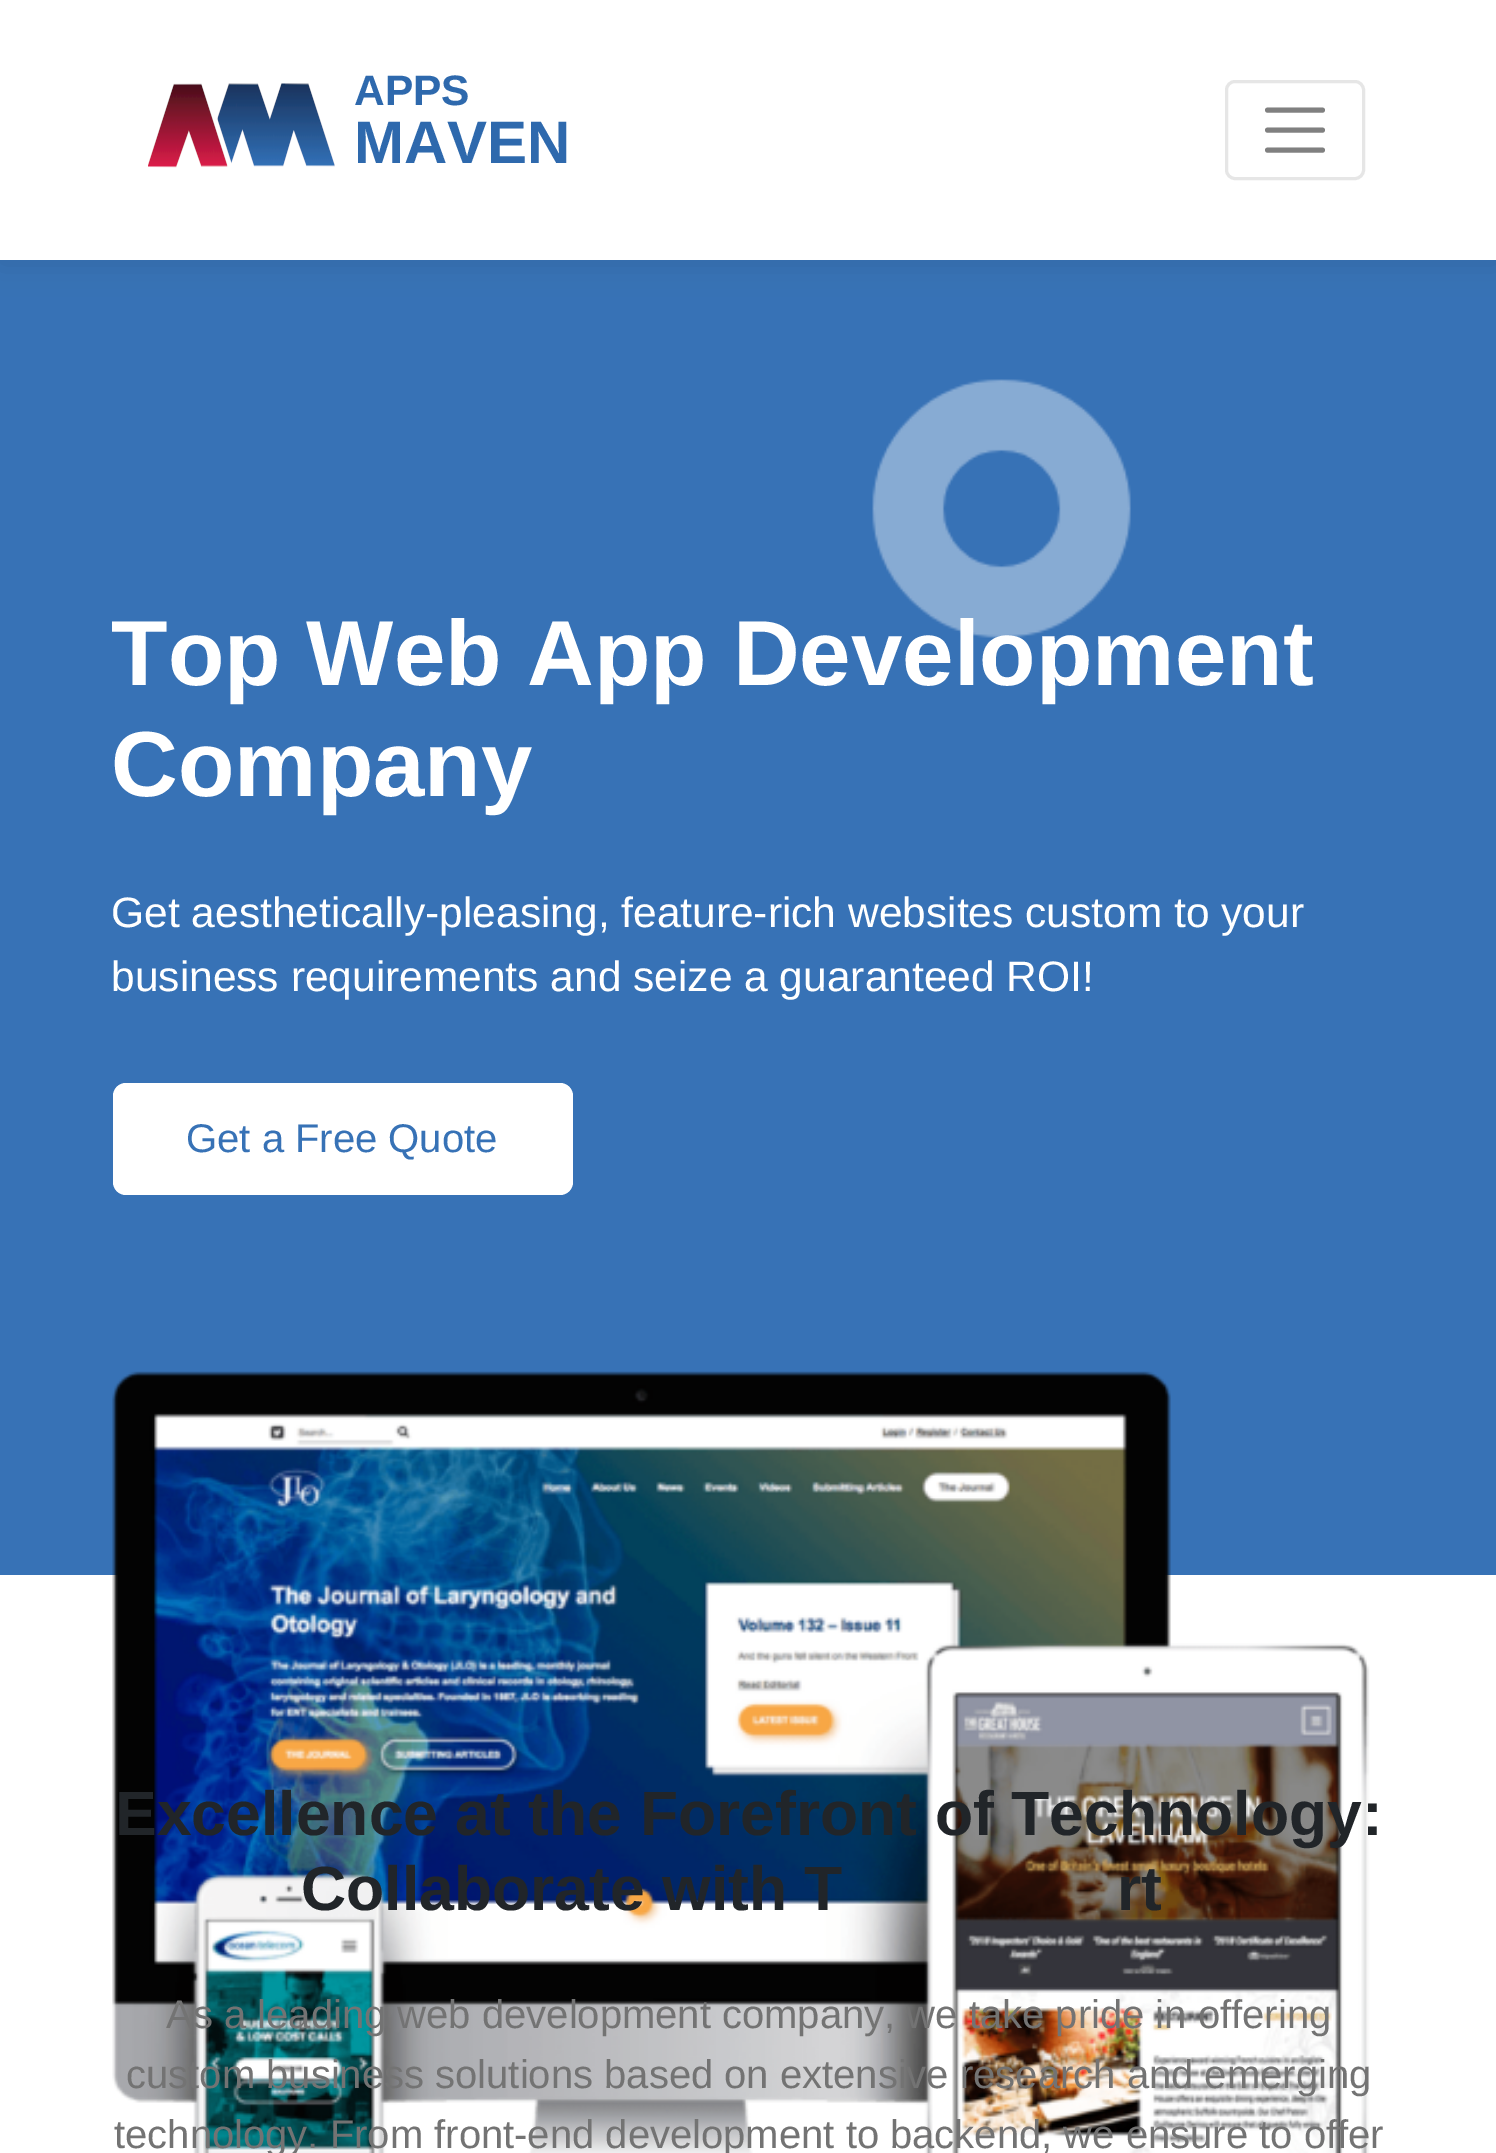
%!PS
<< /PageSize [1496 2153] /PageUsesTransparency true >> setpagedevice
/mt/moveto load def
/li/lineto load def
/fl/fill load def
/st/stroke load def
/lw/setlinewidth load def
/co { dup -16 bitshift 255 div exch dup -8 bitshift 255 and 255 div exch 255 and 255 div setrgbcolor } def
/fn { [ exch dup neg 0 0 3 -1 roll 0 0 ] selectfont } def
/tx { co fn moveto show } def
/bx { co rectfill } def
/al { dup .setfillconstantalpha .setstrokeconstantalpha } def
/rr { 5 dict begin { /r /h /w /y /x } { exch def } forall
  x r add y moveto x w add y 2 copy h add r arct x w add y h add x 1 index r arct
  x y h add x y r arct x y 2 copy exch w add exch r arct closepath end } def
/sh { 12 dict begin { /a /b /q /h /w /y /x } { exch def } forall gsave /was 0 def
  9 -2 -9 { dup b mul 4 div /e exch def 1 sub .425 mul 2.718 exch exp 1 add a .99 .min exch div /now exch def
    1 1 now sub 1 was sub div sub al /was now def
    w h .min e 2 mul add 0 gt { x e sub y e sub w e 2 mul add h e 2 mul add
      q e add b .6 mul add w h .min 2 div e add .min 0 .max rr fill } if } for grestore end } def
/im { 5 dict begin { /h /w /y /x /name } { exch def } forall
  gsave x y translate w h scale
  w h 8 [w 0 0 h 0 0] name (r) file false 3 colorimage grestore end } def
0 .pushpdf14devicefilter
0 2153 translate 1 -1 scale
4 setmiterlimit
0 0 1496 2153 16#FFFFFF bx
(media/2.raw) 0 260 1496 1315 im
16#000000 co
0 3 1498 260 0 15 .1 sh
0 0 1496 260 16#FFFFFF bx
(media/1.raw) 148 83 187 85 im
16#E6E6E6 co
3 lw
1226.5 81.5 137 97 8.5 rr st
16#808080 co
5 lw
1 setlinecap
1267.5 110 mt 1322.5 110 li 1267.5 130 mt 1322.5 130 li 1267.5 150 mt 1322.5 150 li st
16#FFFFFF co
113 1083 460 112 13 rr fl
(media/3.raw) 112 1371 1258 782 im
(APPS) 354 105 /LiberationSans-Bold 42.5 16#2E69AD tx
(MAVEN) 354 163 /LiberationSans-Bold 60 16#2E69AD tx
(Top Web App Development) 111 685 /LiberationSans-Bold 92.5 16#FFFFFF tx
(Company) 111 796 /LiberationSans-Bold 92.5 16#FFFFFF tx
(Get aesthetically-pleasing, feature-rich websites custom to your) 111 927 /LiberationSans-Regular 42.5 16#FFFFFF tx
(business requirements and seize a guaranteed ROI!) 111 991 /LiberationSans-Regular 42.5 16#FFFFFF tx
(Get a Free Quote) 186 1152 /LiberationSans-Regular 40 16#3772B6 tx
(Excellence at the Forefront of Technology:) 115 1835 /LiberationSans-Bold 62.5 16#212529 tx
(Collaborate with T) 301 1910 /LiberationSans-Bold 62.5 16#212529 tx
(rt) 1117 1910 /LiberationSans-Bold 62.5 16#212529 tx
(As a leading web development company, we take pride in offering) 166 2028 /LiberationSans-Regular 40 16#737373 tx
(custom business solutions based on extensive research and emerging) 126 2088 /LiberationSans-Regular 40 16#737373 tx
(technology. From front-end development to backend, we ensure to offer) 114 2148 /LiberationSans-Regular 40 16#737373 tx
.poppdf14devicefilter showpage
